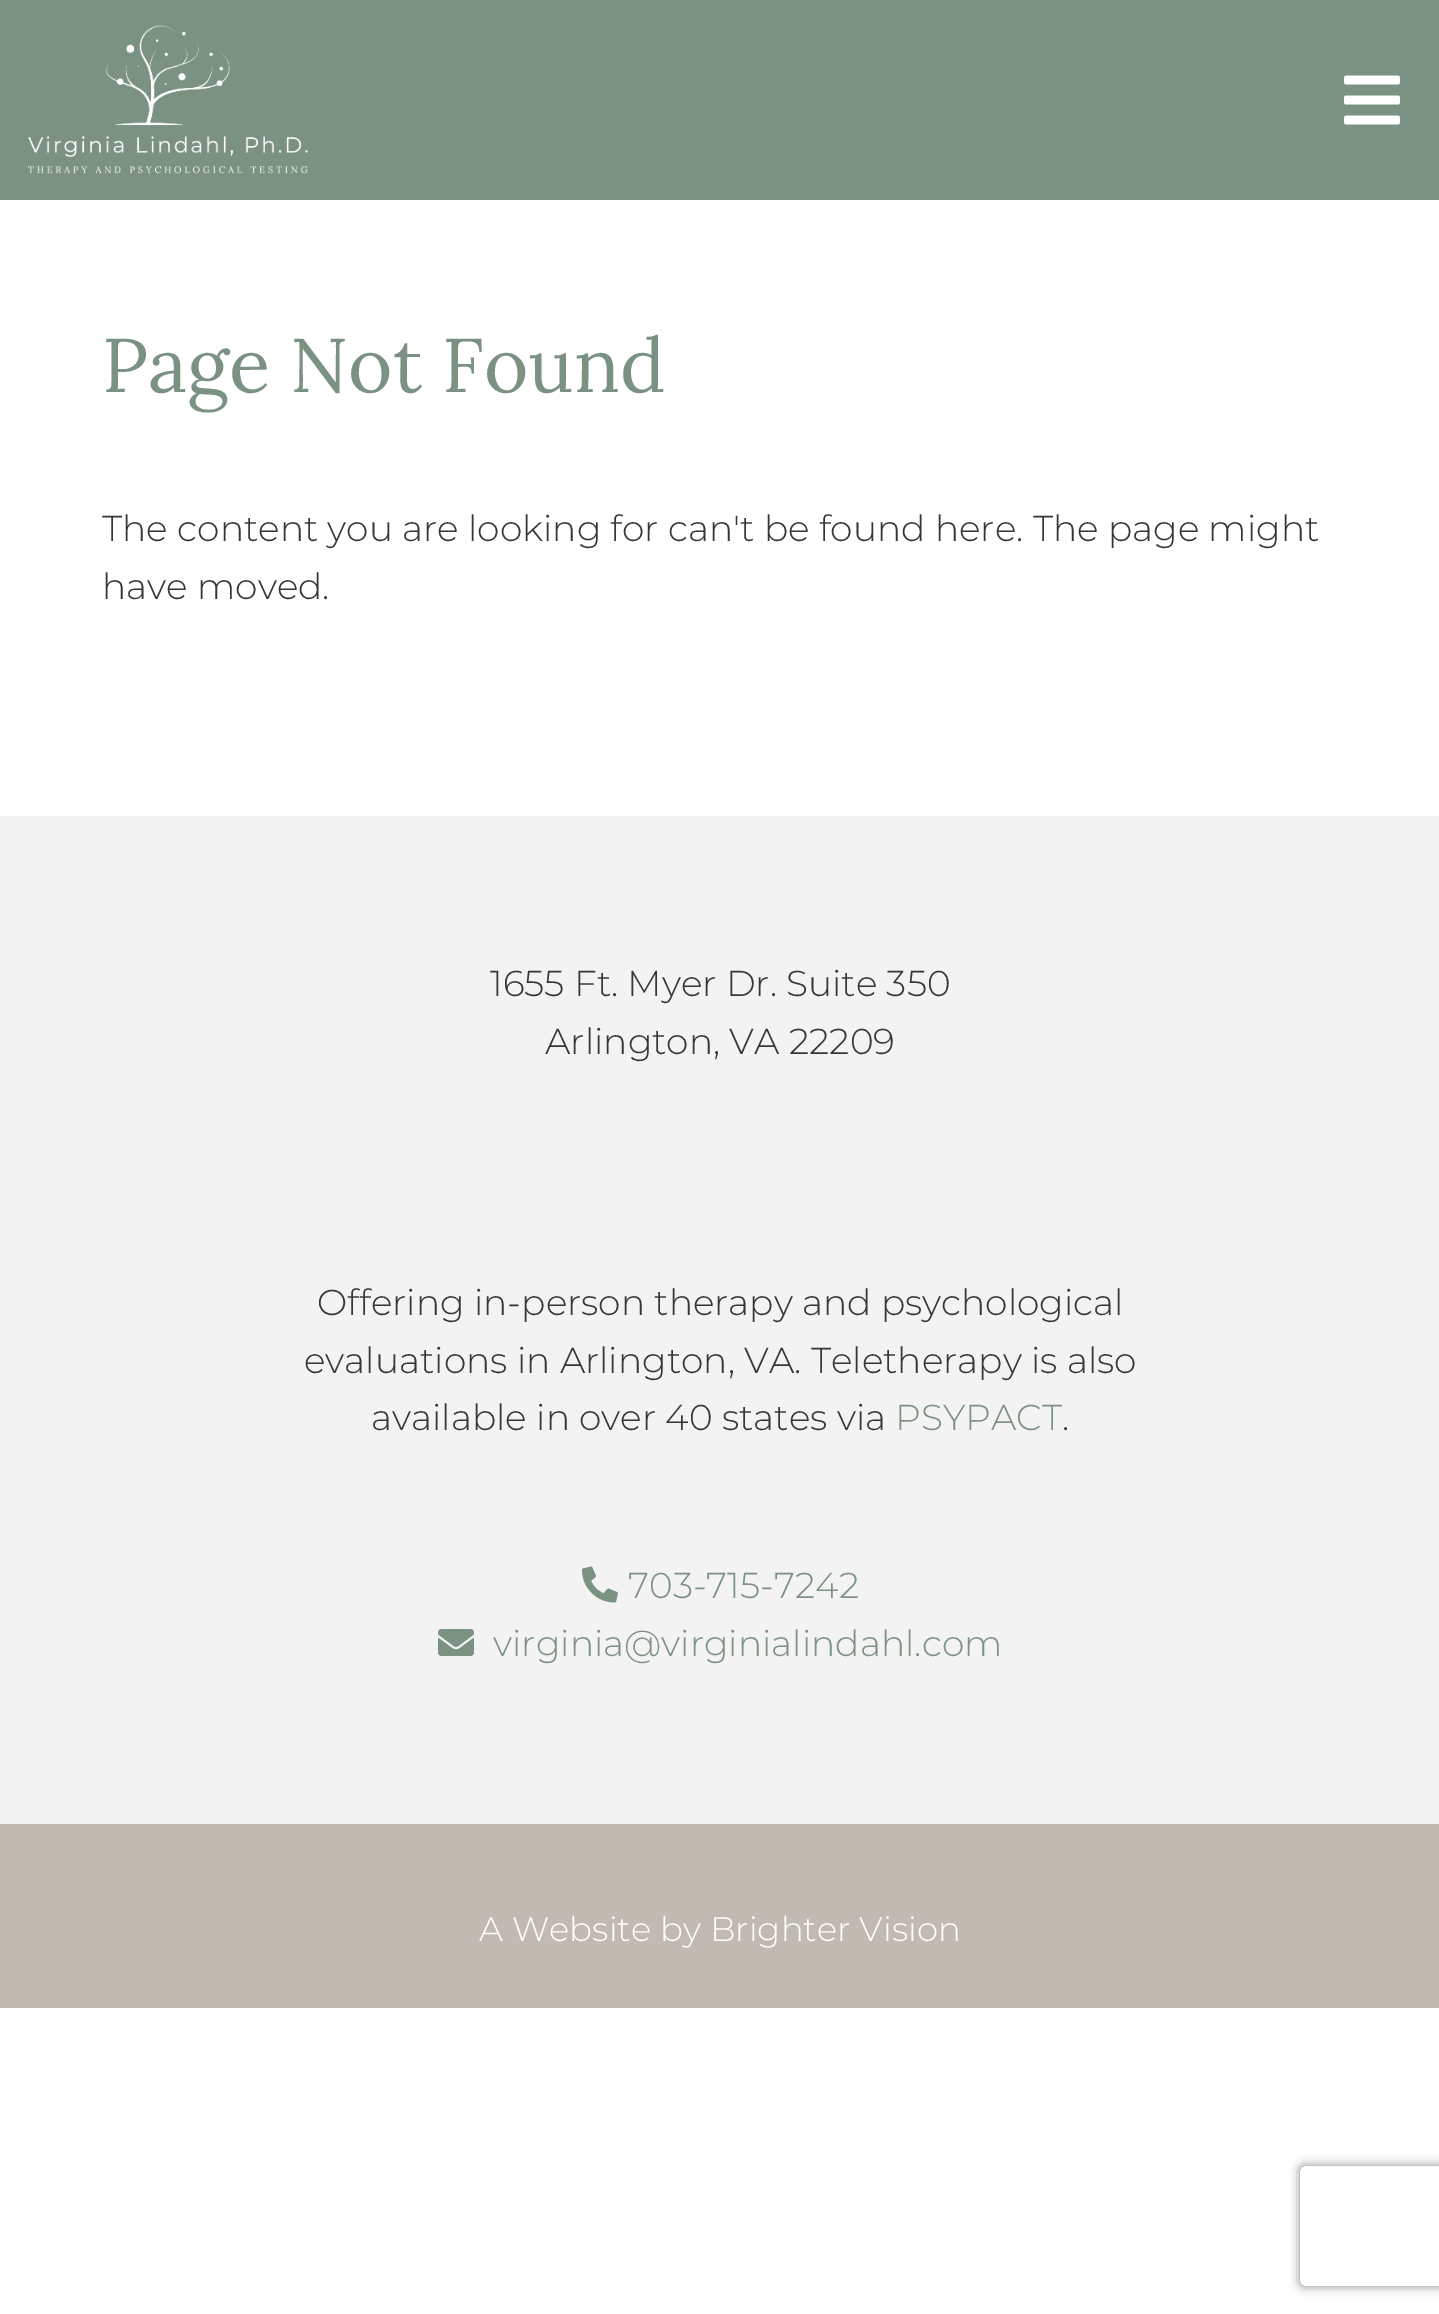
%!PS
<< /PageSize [1439 2314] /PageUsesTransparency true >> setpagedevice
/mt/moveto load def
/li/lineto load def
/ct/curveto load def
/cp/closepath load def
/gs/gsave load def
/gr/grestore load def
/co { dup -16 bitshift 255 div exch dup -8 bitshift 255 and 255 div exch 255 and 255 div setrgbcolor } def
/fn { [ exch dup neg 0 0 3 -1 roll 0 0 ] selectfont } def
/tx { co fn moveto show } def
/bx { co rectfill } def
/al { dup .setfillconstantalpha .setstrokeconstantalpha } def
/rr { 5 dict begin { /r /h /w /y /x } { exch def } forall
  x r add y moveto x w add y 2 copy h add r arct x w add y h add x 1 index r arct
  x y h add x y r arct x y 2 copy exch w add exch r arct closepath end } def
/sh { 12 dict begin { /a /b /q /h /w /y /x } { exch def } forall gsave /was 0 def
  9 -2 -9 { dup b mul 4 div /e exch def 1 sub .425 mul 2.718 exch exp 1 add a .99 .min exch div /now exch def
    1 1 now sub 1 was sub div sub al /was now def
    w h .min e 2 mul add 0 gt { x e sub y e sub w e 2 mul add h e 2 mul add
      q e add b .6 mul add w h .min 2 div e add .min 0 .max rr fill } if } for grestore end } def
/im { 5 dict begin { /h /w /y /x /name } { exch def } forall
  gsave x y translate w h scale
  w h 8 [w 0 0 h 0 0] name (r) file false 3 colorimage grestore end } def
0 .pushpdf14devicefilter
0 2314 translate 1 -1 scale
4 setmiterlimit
0 0 1439 2314 16#FFFFFF bx
0 0 1439 200 16#7B9283 bx
(media/1.raw) 28 25 280 149 im
(media/2.raw) 1344 75 56 50 im
0 816 1439 1008 16#F3F3F3 bx
(media/3.raw) 582 1566 36 37 im
(media/4.raw) 438 1629 36 27 im
0 1824 1439 184 16#C1BAB2 bx
gs
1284 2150 mt 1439 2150 li 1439 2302 li 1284 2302 li cp 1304 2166 mt 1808 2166 li 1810 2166 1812 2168 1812 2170 ct 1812 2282 li 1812 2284 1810 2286 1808 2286 ct 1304 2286 li 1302 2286 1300 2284 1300 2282 ct 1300 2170 li 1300 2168 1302 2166 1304 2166 ct cp eoclip newpath
16#808080 co
1300 2166 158 120 4 5 1 sh
gr
(Page Not Found) 102 392 /Lora-Regular 76 16#7B9283 tx
(The content you are looking for can't be found here. The page might) 102 541 /Montserrat-Light 36 16#363636 tx
(have moved.) 102 599 /Montserrat-Light 36 16#363636 tx
(1655 Ft. Myer Dr. Suite 350) 490 996 /Montserrat-Light 36 16#363636 tx
(Arlington, VA 22209) 545 1054 /Montserrat-Light 36 16#363636 tx
(Offering in-person therapy and psychological) 317 1315 /Montserrat-Light 36 16#363636 tx
(evaluations in Arlington, VA. Teletherapy is also) 304 1373 /Montserrat-Light 36 16#363636 tx
(available in over 40 states via) 371 1430 /Montserrat-Light 36 16#363636 tx
(PSYPACT) 895 1430 /Montserrat-Light 36 16#7B9283 tx
(.) 1062 1430 /Montserrat-Light 36 16#363636 tx
(703-715-7242) 628 1598 /Montserrat-Light 36 16#7B9283 tx
(virginia@virginialindahl.com) 493 1656 /Montserrat-Light 36 16#7B9283 tx
(A Website by Brighter Vision) 479 1941 /Montserrat-Light 34 16#FFFFFF tx
.poppdf14devicefilter showpage
